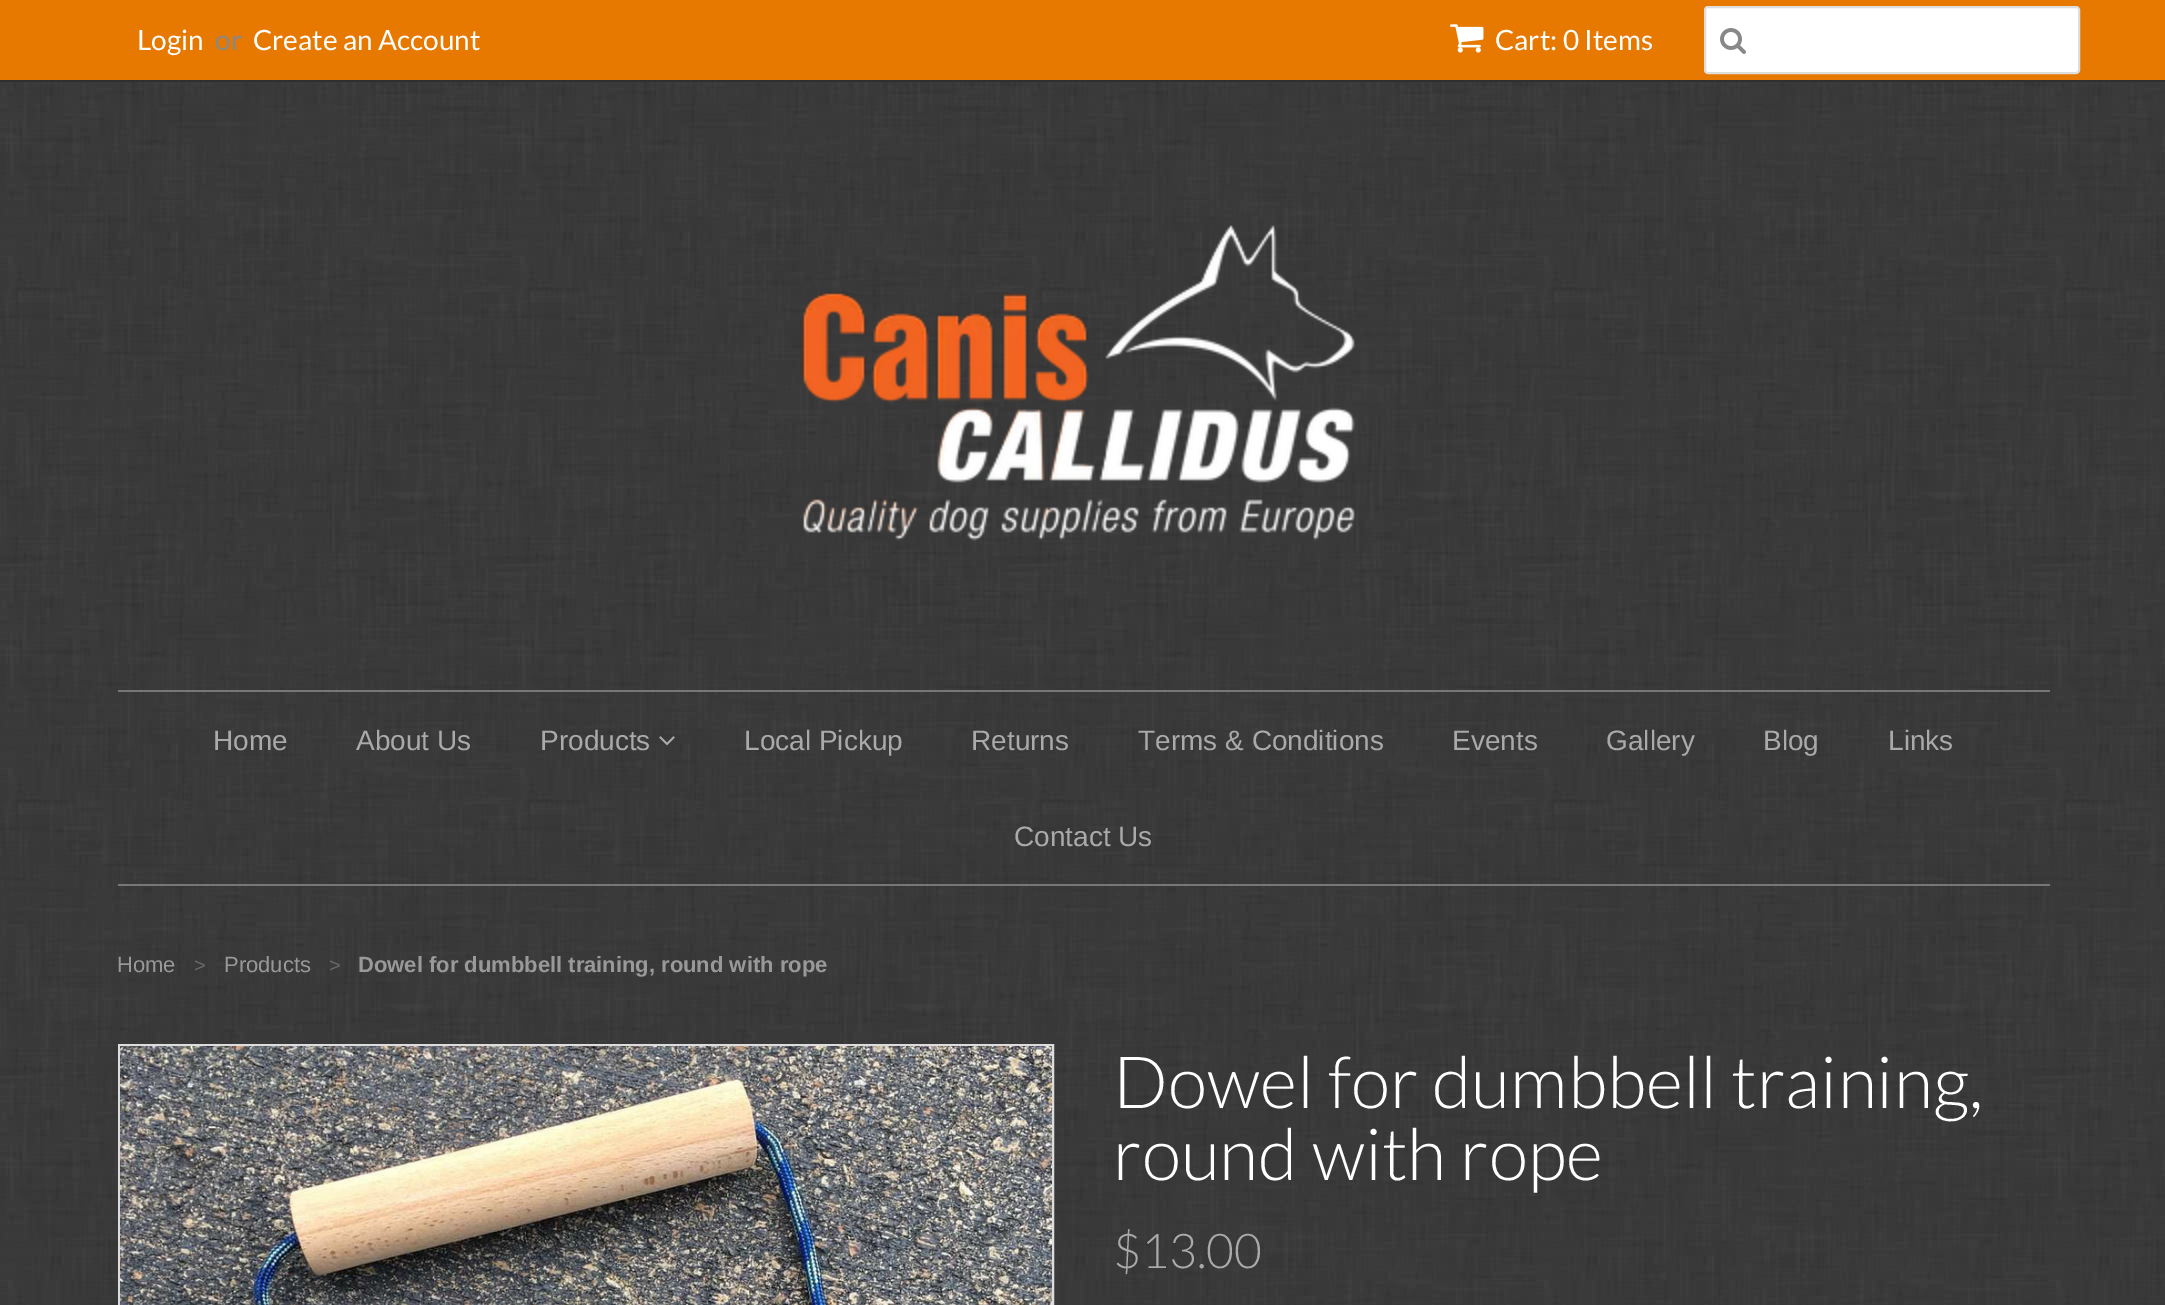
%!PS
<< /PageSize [2165 1305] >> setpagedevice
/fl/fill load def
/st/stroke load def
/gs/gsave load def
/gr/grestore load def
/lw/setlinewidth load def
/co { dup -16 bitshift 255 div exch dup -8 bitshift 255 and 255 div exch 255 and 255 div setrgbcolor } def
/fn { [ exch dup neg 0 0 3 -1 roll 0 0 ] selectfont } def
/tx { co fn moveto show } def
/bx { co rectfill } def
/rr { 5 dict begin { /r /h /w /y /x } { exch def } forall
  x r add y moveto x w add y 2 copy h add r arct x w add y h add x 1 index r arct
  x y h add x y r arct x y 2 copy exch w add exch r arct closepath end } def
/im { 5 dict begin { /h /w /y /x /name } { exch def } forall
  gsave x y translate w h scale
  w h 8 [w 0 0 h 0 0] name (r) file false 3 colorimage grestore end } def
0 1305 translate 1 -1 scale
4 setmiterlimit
0 0 2165 1305 16#FFFFFF bx
(media/1.raw) 0 82 2165 1223 im
0 0 2165 80 16#E77900 bx
0 80 2165 2 16#2F2F2F bx
(media/2.raw) 1450 24 34 29 im
16#FFFFFF co
1705 7 374 66 3 rr gs fl gr
16#DDDDDD co
2 lw
st
(media/3.raw) 1720 28 26 26 im
(media/4.raw) 801 225 554 316 im
118 690 1932 2 16#777777 bx
118 884 1932 2 16#777777 bx
(media/5.raw) 659 736 16 10 im
16#DDDDDD co
119 1045 934 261 rectstroke
(media/6.raw) 120 1046 932 259 im
(Login) 137 50 /Lato-Regular 28 16#FFFFFF tx
(or) 215 50 /Lato-Regular 28 16#888888 tx
(Create an Account) 253 50 /Lato-Regular 28 16#FFFFFF tx
(Cart: 0 Items) 1495 50 /Lato-Regular 28 16#FFFFFF tx
(Home) 213 750 /LiberationSans-Regular 28 16#AAAAAA tx
(About Us) 356 750 /LiberationSans-Regular 28 16#AAAAAA tx
(Products) 540 750 /LiberationSans-Regular 28 16#AAAAAA tx
(Local Pickup) 744 750 /LiberationSans-Regular 28 16#AAAAAA tx
(Returns) 971 750 /LiberationSans-Regular 28 16#AAAAAA tx
(Terms & Conditions) 1138 750 /LiberationSans-Regular 28 16#AAAAAA tx
(Events) 1452 750 /LiberationSans-Regular 28 16#AAAAAA tx
(Gallery) 1606 750 /LiberationSans-Regular 28 16#AAAAAA tx
(Blog) 1763 750 /LiberationSans-Regular 28 16#AAAAAA tx
(Links) 1888 750 /LiberationSans-Regular 28 16#AAAAAA tx
(Contact Us) 1014 846 /LiberationSans-Regular 28 16#AAAAAA tx
(Home) 117 972 /LiberationSans-Regular 22 16#999999 tx
(>) 194 972 /LiberationSans-Regular 20 16#696969 tx
(Products) 224 972 /LiberationSans-Regular 22 16#999999 tx
(>) 329 972 /LiberationSans-Regular 20 16#696969 tx
(Dowel for dumbbell training, round with rope) 358 972 /LiberationSans-Bold 22 16#999999 tx
(Dowel for dumbbell training,) 1113 1108 /Lato-Light 72 16#FFFFFF tx
(round with rope) 1113 1180 /Lato-Light 72 16#FFFFFF tx
($13.00) 1113 1268 /Lato-Light 48 16#AAAAAA tx
showpage
